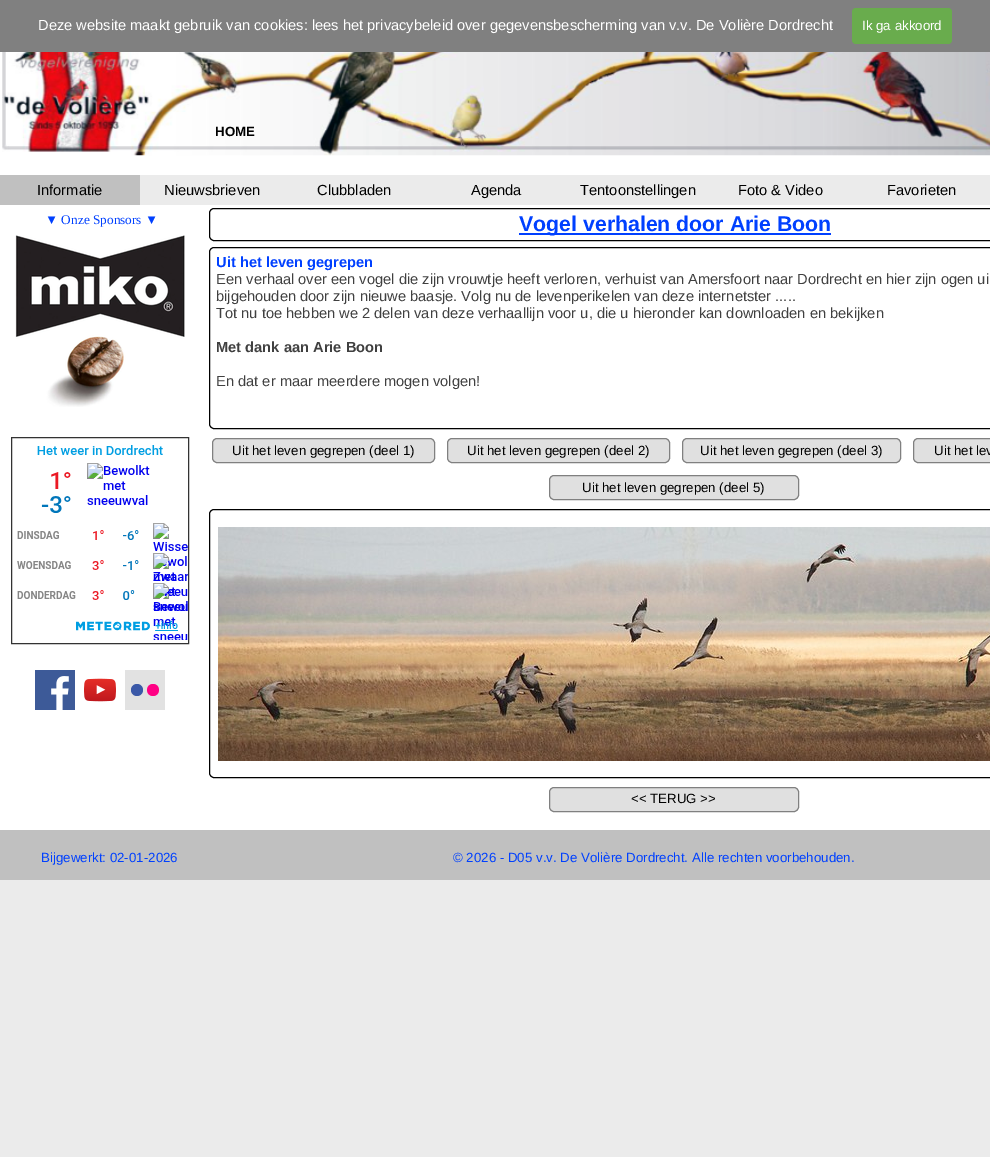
%!PS
<< /PageSize [990 1157] >> setpagedevice
/mt/moveto load def
/ct/curveto load def
/cp/closepath load def
/fl/fill load def
/st/stroke load def
/gs/gsave load def
/gr/grestore load def
/co { dup -16 bitshift 255 div exch dup -8 bitshift 255 and 255 div exch 255 and 255 div setrgbcolor } def
/fn { [ exch dup neg 0 0 3 -1 roll 0 0 ] selectfont } def
/tx { co fn moveto show } def
/bx { co rectfill } def
/ci { newpath 0 360 arc closepath } def
/rr { 5 dict begin { /r /h /w /y /x } { exch def } forall
  x r add y moveto x w add y 2 copy h add r arct x w add y h add x 1 index r arct
  x y h add x y r arct x y 2 copy exch w add exch r arct closepath end } def
/im { 5 dict begin { /h /w /y /x /name } { exch def } forall
  gsave x y translate w h scale
  w h 8 [w 0 0 h 0 0] name (r) file false 3 colorimage grestore end } def
0 1157 translate 1 -1 scale
4 setmiterlimit
0 0 990 1157 16#EBEBEB bx
0 0 990 52 16#808080 bx
16#69AC4D co
852 8 100 36 4 rr fl
0 52 990 123 16#FFFFFF bx
(media/1.raw) 2 52 988 104 im
0 175 140 30 16#C0C0C0 bx
0 205 990 625 16#FFFFFF bx
(media/2.raw) 15 235 170 172 im
16#333333 co
11.5 437.5 177 206 rectstroke
(media/3.raw) 17 445 171 195 im
(media/4.raw) 35 670 40 40 im
(media/5.raw) 84 678 32 24 im
125 670 40 40 16#E2E2E2 bx
16#3A58A7 co
137 690 6 ci fl
16#FF0084 co
153 684 mt 145 684 145 696 153 696 ct 161 696 161 684 153 684 ct cp fl
16#000000 co
209.5 208.5 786 32 4.5 rr st
519 233 312 2 16#0040FF bx
16#000000 co
209.5 247.5 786 181 4.5 rr st
16#E0E0E0 co
212.5 438.5 222 24 4.5 rr gs fl gr
16#808080 co
st
16#E0E0E0 co
447.5 438.5 222 24 4.5 rr gs fl gr
16#808080 co
st
16#E0E0E0 co
682.5 438.5 218 24 4.5 rr gs fl gr
16#808080 co
st
16#E0E0E0 co
913.5 438.5 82 24 4.5 rr gs fl gr
16#808080 co
st
16#E0E0E0 co
549.5 475.5 249 24 4.5 rr gs fl gr
16#808080 co
st
16#000000 co
209.5 509.5 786 268 4.5 rr st
(media/6.raw) 218 527 772 234 im
16#E0E0E0 co
549.5 787.5 249 24 4.5 rr gs fl gr
16#808080 co
st
0 830 990 50 16#C0C0C0 bx
(Deze website maakt gebruik van cookies: lees het privacybeleid over gegevensbescherming van v.v. De Volière Dordrecht) 38 30 /LiberationSans-Regular 14.67 16#FFFFFF tx
(Ik ga akkoord) 862 30 /LiberationSans-Regular 13.3 16#FFFFFF tx
(HOME) 215 136 /LiberationSans-Bold 13.3 16#000000 tx
(Informatie) 37 195 /LiberationSans-Regular 14.67 16#000000 tx
(Nieuwsbrieven) 164 195 /LiberationSans-Regular 14.67 16#000000 tx
(Clubbladen) 317 195 /LiberationSans-Regular 14.67 16#000000 tx
(Agenda) 471 195 /LiberationSans-Regular 14.67 16#000000 tx
(Tentoonstellingen) 580 195 /LiberationSans-Regular 14.67 16#000000 tx
(Foto & Video) 738 195 /LiberationSans-Regular 14.67 16#000000 tx
(Favorieten) 887 195 /LiberationSans-Regular 14.67 16#000000 tx
(▼ Onze Sponsors ▼) 45 224 /LiberationSerif-Regular 13.3 16#0040FF tx
(Vogel verhalen door Arie Boon) 519 231 /LiberationSans-Bold 21.3 16#0040FF tx
(Uit het leven gegrepen) 216 267 /LiberationSans-Bold 14.67 16#0040FF tx
(Een verhaal over een vogel die zijn vrouwtje heeft verloren, verhuist van Amersfoort naar Dordrecht en hier zijn ogen ui) 216 284 /LiberationSans-Regular 14.67 16#404040 tx
(bijgehouden door zijn nieuwe baasje. Volg nu de levenperikelen van deze internetster .....) 216 301 /LiberationSans-Regular 14.67 16#404040 tx
(Tot nu toe hebben we 2 delen van deze verhaallijn voor u, die u hieronder kan downloaden en bekijken) 216 318 /LiberationSans-Regular 14.67 16#404040 tx
(Met dank aan Arie Boon) 216 352 /LiberationSans-Bold 14.67 16#404040 tx
(En dat er maar meerdere mogen volgen!) 216 386 /LiberationSans-Regular 14.67 16#404040 tx
(Uit het leven gegrepen \(deel 1\)) 232 455 /LiberationSans-Regular 13.3 16#000000 tx
(Uit het leven gegrepen \(deel 2\)) 467 455 /LiberationSans-Regular 13.3 16#000000 tx
(Uit het leven gegrepen \(deel 3\)) 700 455 /LiberationSans-Regular 13.3 16#000000 tx
(Uit het lev) 934 455 /LiberationSans-Regular 13.3 16#000000 tx
(Uit het leven gegrepen \(deel 5\)) 582 492 /LiberationSans-Regular 13.3 16#000000 tx
(<< TERUG >>) 631 803 /LiberationSans-Regular 13.3 16#000000 tx
(Bijgewerkt: 02-01-2026) 41 862 /LiberationSans-Regular 13.3 16#0040FF tx
(© 2026 - D05 v.v. De Volière Dordrecht. Alle rechten voorbehouden.) 453 862 /LiberationSans-Regular 13.3 16#0040FF tx
showpage
